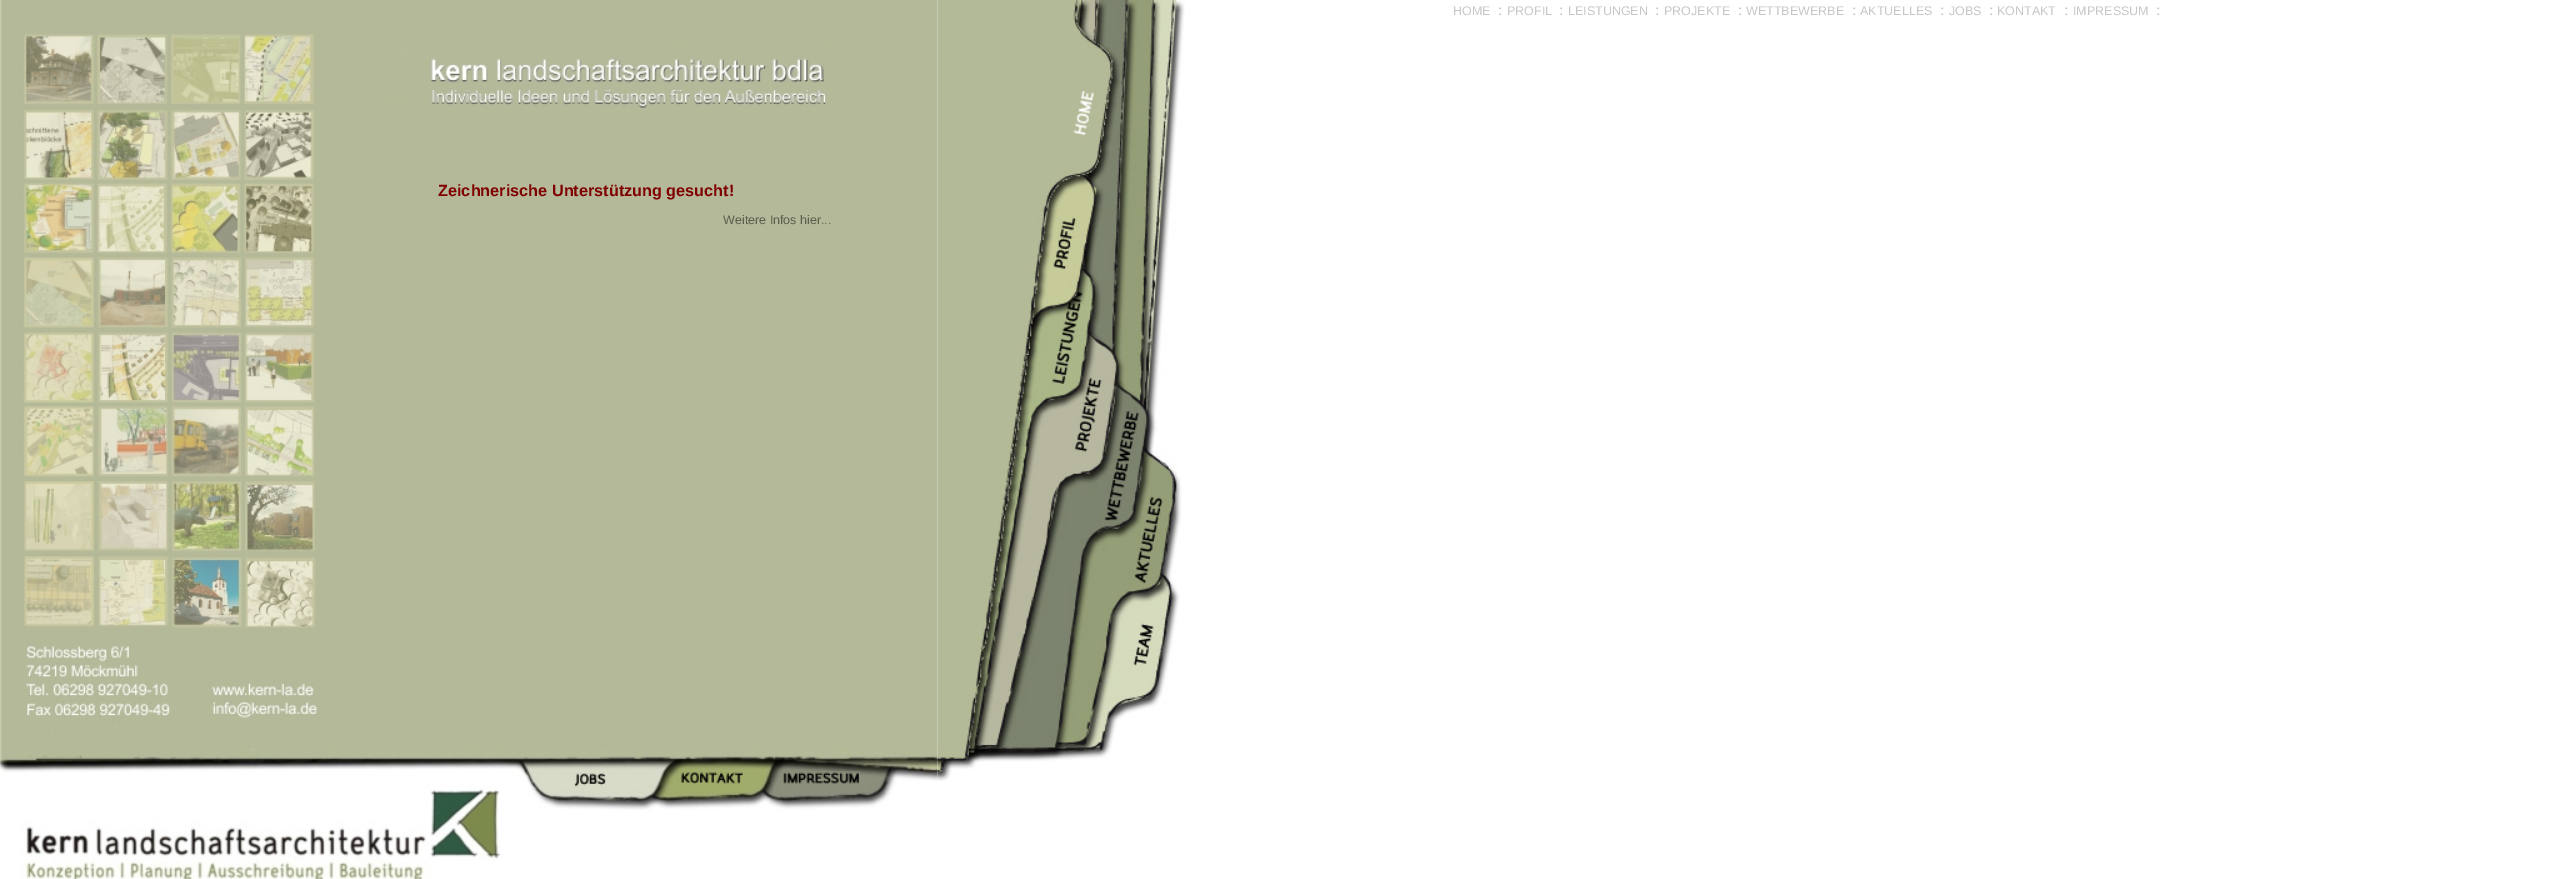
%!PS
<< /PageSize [2563 879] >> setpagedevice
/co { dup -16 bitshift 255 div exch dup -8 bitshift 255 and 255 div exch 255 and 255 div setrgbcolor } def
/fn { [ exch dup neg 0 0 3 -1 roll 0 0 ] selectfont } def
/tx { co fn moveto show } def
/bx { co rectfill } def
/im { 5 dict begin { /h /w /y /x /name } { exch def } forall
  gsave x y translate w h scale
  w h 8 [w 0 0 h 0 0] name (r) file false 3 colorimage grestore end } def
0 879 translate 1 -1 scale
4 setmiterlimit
0 0 2563 879 16#FFFFFF bx
(media/1.raw) 0 0 938 879 im
(media/2.raw) 574 773 32 14 im
(media/3.raw) 681 772 63 21 im
(media/4.raw) 781 771 79 13 im
(media/5.raw) 937 0 248 781 im
(HOME) 1453 15 /LiberationSans-Regular 12.5 16#C6C7C8 tx
(:) 1498 15 /LiberationSerif-Regular 16.25 16#C6C7C8 tx
(PROFIL) 1507 15 /LiberationSans-Regular 12.5 16#C6C7C8 tx
(:) 1559 15 /LiberationSerif-Regular 16.25 16#C6C7C8 tx
(LEISTUNGEN) 1568 15 /LiberationSans-Regular 12.5 16#C6C7C8 tx
(:) 1655 15 /LiberationSerif-Regular 16.25 16#C6C7C8 tx
(PROJEKTE) 1664 15 /LiberationSans-Regular 12.5 16#C6C7C8 tx
(:) 1738 15 /LiberationSerif-Regular 16.25 16#C6C7C8 tx
(WETTBEWERBE) 1746 15 /LiberationSans-Regular 12.5 16#C6C7C8 tx
(:) 1852 15 /LiberationSerif-Regular 16.25 16#C6C7C8 tx
(AKTUELLES) 1860 15 /LiberationSans-Regular 12.5 16#C6C7C8 tx
(:) 1940 15 /LiberationSerif-Regular 16.25 16#C6C7C8 tx
(JOBS) 1949 15 /LiberationSans-Regular 12.5 16#C6C7C8 tx
(:) 1989 15 /LiberationSerif-Regular 16.25 16#C6C7C8 tx
(KONTAKT) 1997 15 /LiberationSans-Regular 12.5 16#C6C7C8 tx
(:) 2064 15 /LiberationSerif-Regular 16.25 16#C6C7C8 tx
(IMPRESSUM) 2073 15 /LiberationSans-Regular 12.5 16#C6C7C8 tx
(:) 2156 15 /LiberationSerif-Regular 16.25 16#C6C7C8 tx
(Zeichnerische Unterstützung gesucht!) 438 196 /LiberationSans-Bold 16.25 16#800000 tx
(Weitere Infos hier...) 723 224 /LiberationSans-Regular 12.5 16#5A5F4D tx
showpage
